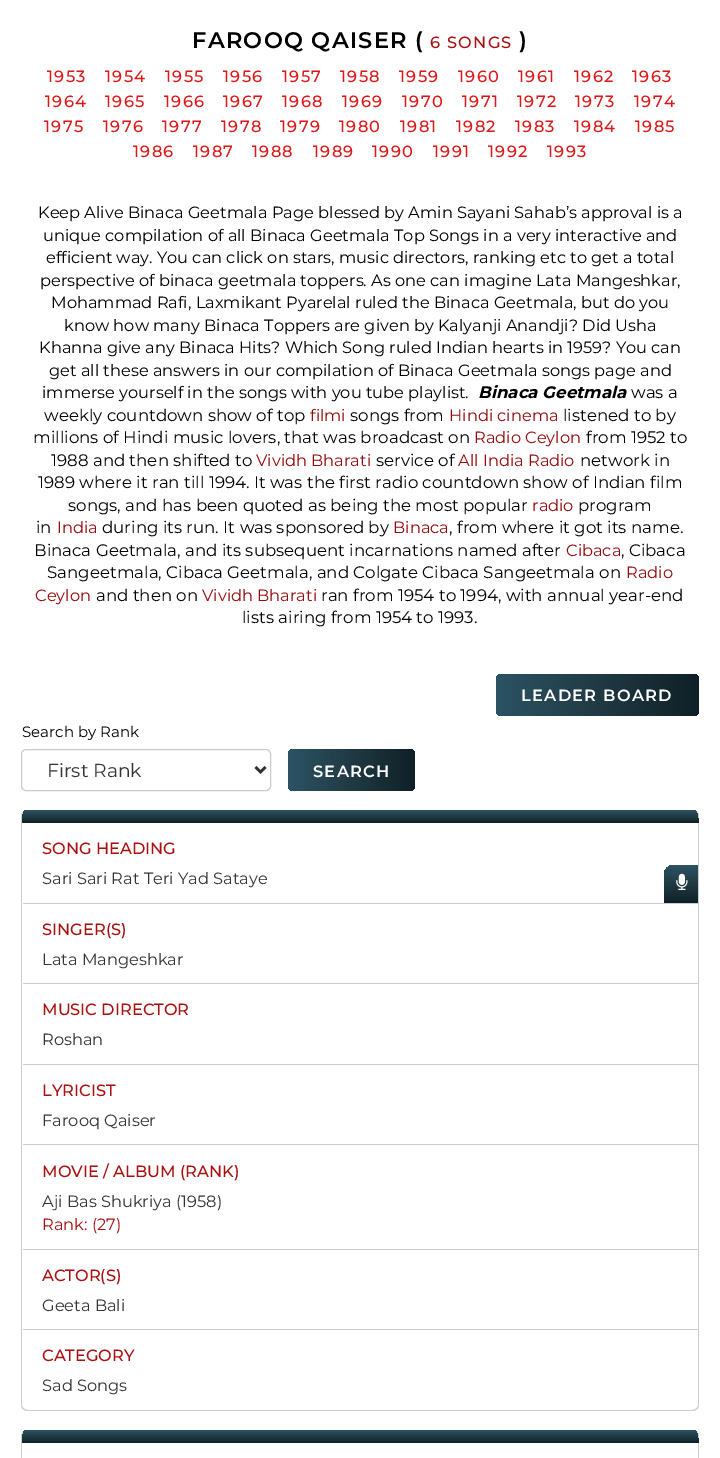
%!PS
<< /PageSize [720 1458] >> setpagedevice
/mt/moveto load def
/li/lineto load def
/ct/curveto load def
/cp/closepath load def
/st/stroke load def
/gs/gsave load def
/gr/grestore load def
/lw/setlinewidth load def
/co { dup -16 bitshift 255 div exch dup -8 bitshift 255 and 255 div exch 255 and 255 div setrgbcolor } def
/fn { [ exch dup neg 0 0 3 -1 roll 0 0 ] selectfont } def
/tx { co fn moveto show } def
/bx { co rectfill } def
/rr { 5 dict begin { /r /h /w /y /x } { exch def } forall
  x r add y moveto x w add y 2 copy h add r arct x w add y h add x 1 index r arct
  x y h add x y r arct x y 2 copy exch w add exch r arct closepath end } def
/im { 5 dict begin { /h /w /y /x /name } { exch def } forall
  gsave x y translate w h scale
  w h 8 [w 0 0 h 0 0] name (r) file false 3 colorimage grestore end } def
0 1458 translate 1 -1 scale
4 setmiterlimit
0 0 720 1458 16#FFFFFF bx
gs 496 674 203 42 5 rr clip newpath
<< /ShadingType 2 /ColorSpace /DeviceRGB /Coords [496 695 699 695] /Extend [true true] /Function << /FunctionType 3 /Domain [0 1] /Functions [<< /FunctionType 2 /Domain [0 1] /C0 [.173 .325 .392] /C1 [.125 .227 .263] /N 1 >> << /FunctionType 2 /Domain [0 1] /C0 [.125 .227 .263] /C1 [.059 .125 .153] /N 1 >>] /Bounds [.5] /Encode [0 1 0 1] >> >> shfill gr
16#CBCBCB co
21.5 749.5 249 41 4.5 rr st
16#333333 co
2.5 lw
255.5 767 mt 260.5 772 li 265.5 767 li st
gs 288 749 127 42 5 rr clip newpath
<< /ShadingType 2 /ColorSpace /DeviceRGB /Coords [288 770 415 770] /Extend [true true] /Function << /FunctionType 3 /Domain [0 1] /Functions [<< /FunctionType 2 /Domain [0 1] /C0 [.173 .325 .392] /C1 [.125 .227 .263] /N 1 >> << /FunctionType 2 /Domain [0 1] /C0 [.125 .227 .263] /C1 [.059 .125 .153] /N 1 >>] /Bounds [.5] /Encode [0 1 0 1] >> >> shfill gr
16#CCCCCC co
28 810 mt 692 810 li 696 810 699 813 699 816 ct 699 1405 li 699 1408 696 1411 692 1411 ct 28 1411 li 24 1411 21 1408 21 1405 ct 21 816 li 21 813 24 810 28 810 ct cp 28 810 mt 692 810 li 695 810 698 813 698 816 ct 698 1405 li 698 1408 695 1410 692 1410 ct 28 1410 li 25 1410 22 1408 22 1405 ct 22 816 li 22 813 25 810 28 810 ct cp eofill
gs 28 810 mt 21 810 23 819 23 823 ct 698 823 li 698 819 699 810 692 810 ct cp clip newpath
<< /ShadingType 2 /ColorSpace /DeviceRGB /Coords [360 810 360 823] /Extend [true true] /Function << /FunctionType 3 /Domain [0 1] /Functions [<< /FunctionType 2 /Domain [0 1] /C0 [.173 .325 .392] /C1 [.125 .227 .263] /N 1 >> << /FunctionType 2 /Domain [0 1] /C0 [.125 .227 .263] /C1 [.059 .125 .153] /N 1 >>] /Bounds [.5] /Encode [0 1 0 1] >> >> shfill gr
23 903 675 1 16#CCCCCC bx
gs 674 865 mt 697.5 865 li 697.5 903 li 664 903 li 664 875 li 664 869.5 668.5 865 674 865 ct cp clip newpath
<< /ShadingType 2 /ColorSpace /DeviceRGB /Coords [681 865 681 903] /Extend [true true] /Function << /FunctionType 3 /Domain [0 1] /Functions [<< /FunctionType 2 /Domain [0 1] /C0 [.173 .325 .392] /C1 [.125 .227 .263] /N 1 >> << /FunctionType 2 /Domain [0 1] /C0 [.125 .227 .263] /C1 [.059 .125 .153] /N 1 >>] /Bounds [.5] /Encode [0 1 0 1] >> >> shfill gr
(media/1.raw) 676 873 12 17 im
23 983 675 1 16#CCCCCC bx
23 1064 675 1 16#CCCCCC bx
23 1144 675 1 16#CCCCCC bx
23 1249 675 1 16#CCCCCC bx
23 1329 675 1 16#CCCCCC bx
28 1430 mt 692 1430 li 696 1430 699 1433 699 1436 ct 699 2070 li 699 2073 696 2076 692 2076 ct 28 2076 li 24 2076 21 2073 21 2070 ct 21 1436 li 21 1433 24 1430 28 1430 ct cp 28 1430 mt 692 1430 li 695 1430 698 1433 698 1436 ct 698 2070 li 698 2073 695 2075 692 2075 ct 28 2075 li 25 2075 22 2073 22 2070 ct 22 1436 li 22 1433 25 1430 28 1430 ct cp eofill
gs 28 1430 mt 21 1430 23 1439 23 1443 ct 698 1443 li 698 1439 699 1430 692 1430 ct cp clip newpath
<< /ShadingType 2 /ColorSpace /DeviceRGB /Coords [360 1430 360 1443] /Extend [true true] /Function << /FunctionType 3 /Domain [0 1] /Functions [<< /FunctionType 2 /Domain [0 1] /C0 [.173 .325 .392] /C1 [.125 .227 .263] /N 1 >> << /FunctionType 2 /Domain [0 1] /C0 [.125 .227 .263] /C1 [.059 .125 .153] /N 1 >>] /Bounds [.5] /Encode [0 1 0 1] >> >> shfill gr
/Montserrat-SemiBold 22.5 fn
16#000000 co
192 48 mt 1.25 0 (FAROOQ QAISER \() ashow
/Montserrat-Medium 16.25 fn
16#AA0F0F co
430 48 mt 1.25 0 (6 SONGS) ashow
/Montserrat-SemiBold 22.5 fn
16#000000 co
519 48 mt 1.25 0 (\)) ashow
/Montserrat-Medium 16.25 fn
16#DD1818 co
47 82 mt 1.25 0 (1953) ashow
105 82 mt 1.25 0 (1954) ashow
165 82 mt 1.25 0 (1955) ashow
223 82 mt 1.25 0 (1956) ashow
282 82 mt 1.25 0 (1957) ashow
340 82 mt 1.25 0 (1958) ashow
399 82 mt 1.25 0 (1959) ashow
458 82 mt 1.25 0 (1960) ashow
518 82 mt 1.25 0 (1961) ashow
574 82 mt 1.25 0 (1962) ashow
632 82 mt 1.25 0 (1963) ashow
45 107 mt 1.25 0 (1964) ashow
105 107 mt 1.25 0 (1965) ashow
164 107 mt 1.25 0 (1966) ashow
223 107 mt 1.25 0 (1967) ashow
282 107 mt 1.25 0 (1968) ashow
342 107 mt 1.25 0 (1969) ashow
402 107 mt 1.25 0 (1970) ashow
462 107 mt 1.25 0 (1971) ashow
517 107 mt 1.25 0 (1972) ashow
575 107 mt 1.25 0 (1973) ashow
634 107 mt 1.25 0 (1974) ashow
44 132 mt 1.25 0 (1975) ashow
103 132 mt 1.25 0 (1976) ashow
162 132 mt 1.25 0 (1977) ashow
221 132 mt 1.25 0 (1978) ashow
280 132 mt 1.25 0 (1979) ashow
339 132 mt 1.25 0 (1980) ashow
400 132 mt 1.25 0 (1981) ashow
456 132 mt 1.25 0 (1982) ashow
515 132 mt 1.25 0 (1983) ashow
574 132 mt 1.25 0 (1984) ashow
635 132 mt 1.25 0 (1985) ashow
133 157 mt 1.25 0 (1986) ashow
193 157 mt 1.25 0 (1987) ashow
252 157 mt 1.25 0 (1988) ashow
313 157 mt 1.25 0 (1989) ashow
372 157 mt 1.25 0 (1990) ashow
433 157 mt 1.25 0 (1991) ashow
488 157 mt 1.25 0 (1992) ashow
547 157 mt 1.25 0 (1993) ashow
(Keep Alive Binaca Geetmala Page blessed by Amin Sayani Sahab’s approval is a) 38 218 /Montserrat-Regular 16.25 16#000000 tx
(unique compilation of all Binaca Geetmala Top Songs in a very interactive and) 43 241 /Montserrat-Regular 16.25 16#000000 tx
(efficient way. You can click on stars, music directors, ranking etc to get a total) 46 263 /Montserrat-Regular 16.25 16#000000 tx
(perspective of binaca geetmala toppers. As one can imagine Lata Mangeshkar,) 40 286 /Montserrat-Regular 16.25 16#000000 tx
(Mohammad Rafi, Laxmikant Pyarelal ruled the Binaca Geetmala, but do you) 51 308 /Montserrat-Regular 16.25 16#000000 tx
(know how many Binaca Toppers are given by Kalyanji Anandji? Did Usha) 64 331 /Montserrat-Regular 16.25 16#000000 tx
(Khanna give any Binaca Hits? Which Song ruled Indian hearts in 1959? You can) 39 353 /Montserrat-Regular 16.25 16#000000 tx
(get all these answers in our compilation of Binaca Geetmala songs page and) 49 376 /Montserrat-Regular 16.25 16#000000 tx
(immerse yourself in the songs with you tube playlist.) 42 398 /Montserrat-Regular 16.25 16#000000 tx
(Binaca Geetmala) 478 398 /Montserrat-BoldItalic 16.65 16#000000 tx
(was a) 631 398 /Montserrat-Regular 16.65 16#000000 tx
(weekly countdown show of top) 44 421 /Montserrat-Regular 16.65 16#000000 tx
(filmi) 310 421 /Montserrat-Regular 16.25 16#950B0B tx
(songs from) 350 421 /Montserrat-Regular 16.65 16#000000 tx
(Hindi cinema) 449 421 /Montserrat-Regular 16.25 16#950B0B tx
(listened to by) 563 421 /Montserrat-Regular 16.65 16#000000 tx
(millions of Hindi music lovers, that was broadcast on) 33 443 /Montserrat-Regular 16.65 16#000000 tx
(Radio Ceylon) 474 443 /Montserrat-Regular 16.25 16#950B0B tx
(from 1952 to) 586 443 /Montserrat-Regular 16.65 16#000000 tx
(1988 and then shifted to) 51 466 /Montserrat-Regular 16.65 16#000000 tx
(Vividh Bharati) 256 466 /Montserrat-Regular 16.25 16#950B0B tx
(service of) 376 466 /Montserrat-Regular 16.65 16#000000 tx
(All India Radio) 458 466 /Montserrat-Regular 16.25 16#950B0B tx
(network in) 580 466 /Montserrat-Regular 16.65 16#000000 tx
(1989 where it ran till 1994. It was the first radio countdown show of Indian film) 38 488 /Montserrat-Regular 16.65 16#000000 tx
(songs, and has been quoted as being the most popular) 68 511 /Montserrat-Regular 16.65 16#000000 tx
(radio) 532 511 /Montserrat-Regular 16.25 16#950B0B tx
(program) 578 511 /Montserrat-Regular 16.65 16#000000 tx
(in) 36 533 /Montserrat-Regular 16.65 16#000000 tx
(India) 57 533 /Montserrat-Regular 16.25 16#950B0B tx
(during its run. It was sponsored by) 102 533 /Montserrat-Regular 16.65 16#000000 tx
(Binaca) 393 533 /Montserrat-Regular 16.25 16#950B0B tx
(, from where it got its name.) 449 533 /Montserrat-Regular 16.65 16#000000 tx
(Binaca Geetmala, and its subsequent incarnations named after) 34 556 /Montserrat-Regular 16.65 16#000000 tx
(Cibaca) 566 556 /Montserrat-Regular 16.25 16#950B0B tx
(, Cibaca) 621 556 /Montserrat-Regular 16.65 16#000000 tx
(Sangeetmala, Cibaca Geetmala, and Colgate Cibaca Sangeetmala on) 47 578 /Montserrat-Regular 16.65 16#000000 tx
(Radio) 626 578 /Montserrat-Regular 16.25 16#950B0B tx
(Ceylon) 35 601 /Montserrat-Regular 16.25 16#950B0B tx
(and then on) 96 601 /Montserrat-Regular 16.65 16#000000 tx
(Vividh Bharati) 202 601 /Montserrat-Regular 16.25 16#950B0B tx
(ran from 1954 to 1994, with annual year-end) 321 601 /Montserrat-Regular 16.65 16#000000 tx
(lists airing from 1954 to 1993.) 242 623 /Montserrat-Regular 16.65 16#000000 tx
/Montserrat-SemiBold 16.25 fn
16#FFFFFF co
521 701 mt 1.25 0 (LEADER BOARD) ashow
(Search by Rank) 22 737 /Montserrat-Regular 15 16#000000 tx
(First Rank) 47 777 /Montserrat-Regular 18.75 16#333333 tx
/Montserrat-SemiBold 16.25 fn
16#FFFFFF co
313 777 mt 1.25 0 (SEARCH) ashow
(SONG HEADING) 42 854 /Montserrat-Medium 16.25 16#AA0F0F tx
(Sari Sari Rat Teri Yad Sataye) 42 884 /Montserrat-Regular 16.25 16#333333 tx
(SINGER\(S\)) 42 935 /Montserrat-Medium 16.25 16#AA0F0F tx
(Lata Mangeshkar) 42 965 /Montserrat-Regular 16.25 16#333333 tx
(MUSIC DIRECTOR) 42 1015 /Montserrat-Medium 16.25 16#AA0F0F tx
(Roshan) 42 1045 /Montserrat-Regular 16.25 16#333333 tx
(LYRICIST) 42 1096 /Montserrat-Medium 16.25 16#AA0F0F tx
(Farooq Qaiser) 42 1126 /Montserrat-Regular 16.25 16#333333 tx
(MOVIE / ALBUM \(RANK\)) 42 1177 /Montserrat-Medium 16.25 16#AA0F0F tx
(Aji Bas Shukriya \(1958\)) 42 1207 /Montserrat-Regular 16.25 16#333333 tx
(Rank: \(27\)) 42 1230 /Montserrat-Regular 16.25 16#AA0F0F tx
(ACTOR\(S\)) 42 1281 /Montserrat-Medium 16.25 16#AA0F0F tx
(Geeta Bali) 42 1311 /Montserrat-Regular 16.25 16#333333 tx
(CATEGORY) 42 1361 /Montserrat-Medium 16.25 16#AA0F0F tx
(Sad Songs) 42 1391 /Montserrat-Regular 16.25 16#333333 tx
showpage
